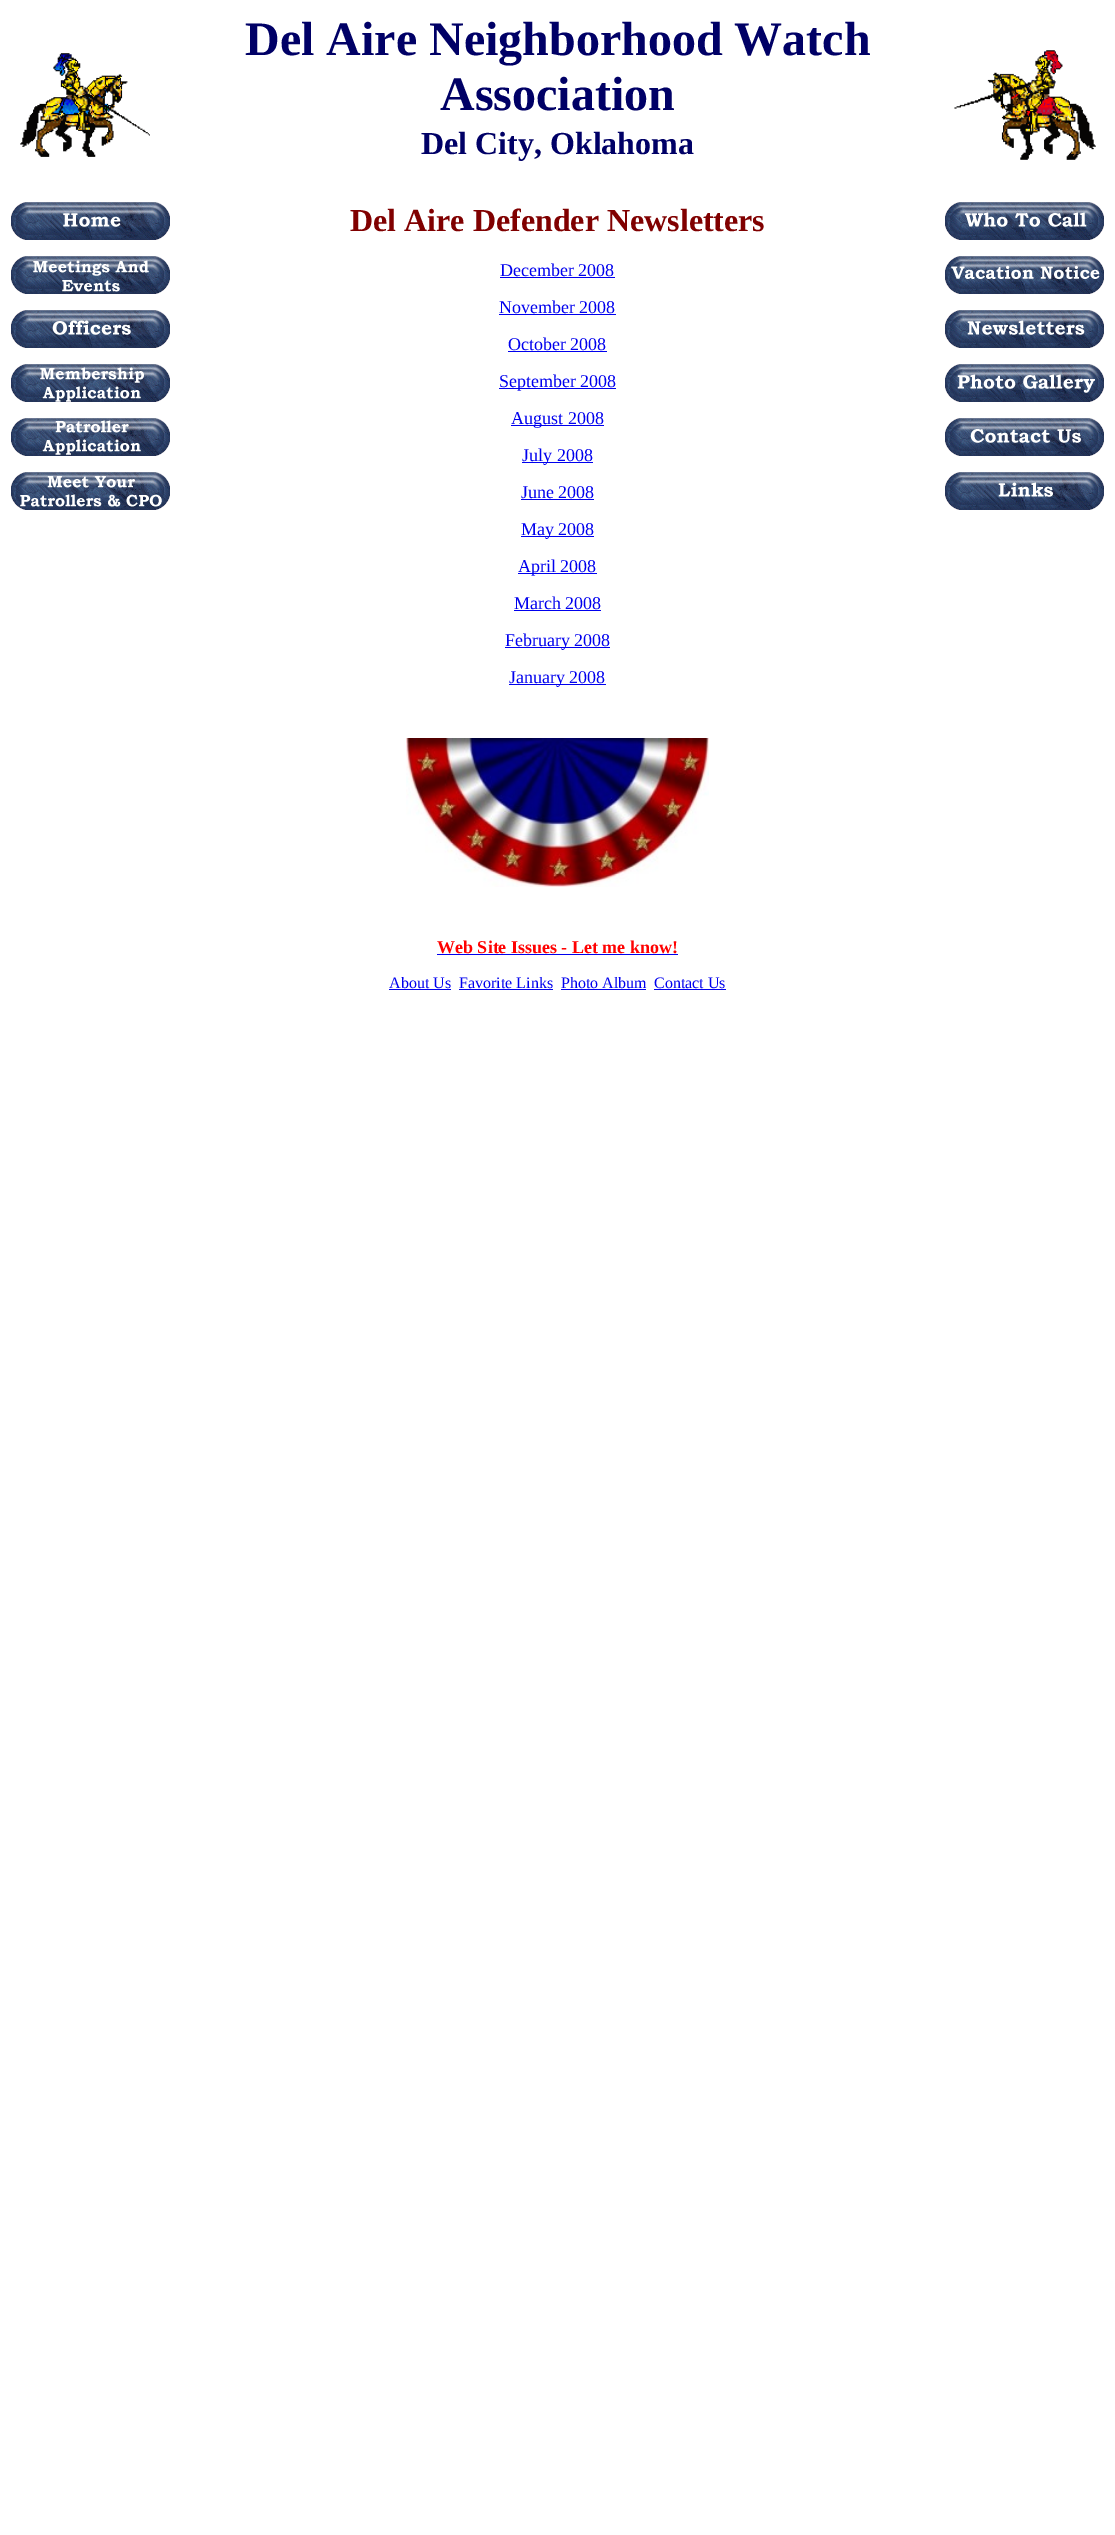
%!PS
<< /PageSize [1115 2535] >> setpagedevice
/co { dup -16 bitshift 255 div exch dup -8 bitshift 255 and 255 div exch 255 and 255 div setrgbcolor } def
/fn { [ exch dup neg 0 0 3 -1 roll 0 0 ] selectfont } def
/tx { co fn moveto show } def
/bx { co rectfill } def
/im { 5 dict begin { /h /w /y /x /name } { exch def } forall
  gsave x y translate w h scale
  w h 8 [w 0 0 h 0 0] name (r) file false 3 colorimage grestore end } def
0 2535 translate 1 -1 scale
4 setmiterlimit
0 0 1115 2535 16#FFFFFF bx
(media/1.raw) 20 53 130 104 im
(media/2.raw) 954 50 142 110 im
(media/3.raw) 11 202 159 38 im
(media/4.raw) 11 256 159 38 im
(media/5.raw) 11 310 159 38 im
(media/6.raw) 11 364 159 38 im
(media/7.raw) 11 418 159 38 im
(media/8.raw) 11 472 159 38 im
500 277 115 1 16#0000EE bx
499 314 117 1 16#0000EE bx
508 351 99 1 16#0000EE bx
499 388 117 1 16#0000EE bx
511 425 93 1 16#0000EE bx
522 462 71 1 16#0000EE bx
521 499 73 1 16#0000EE bx
521 536 73 1 16#0000EE bx
518 573 79 1 16#0000EE bx
514 610 87 1 16#0000EE bx
505 647 105 1 16#0000EE bx
509 684 97 1 16#0000EE bx
(media/9.raw) 945 202 159 38 im
(media/10.raw) 945 256 159 38 im
(media/11.raw) 945 310 159 38 im
(media/12.raw) 945 364 159 38 im
(media/13.raw) 945 418 159 38 im
(media/14.raw) 945 472 159 38 im
(media/15.raw) 406 738 303 149 im
437 954 241 1 16#0000EE bx
389 989 62 1 16#0000EE bx
459 989 94 1 16#0000EE bx
561 989 85 1 16#0000EE bx
654 989 72 1 16#0000EE bx
(Del Aire Neighborhood Watch) 245 55 /LiberationSerif-Bold 48 16#000066 tx
(Association) 440 110 /LiberationSerif-Bold 48 16#000066 tx
(Del City, Oklahoma) 421 154 /LiberationSerif-Bold 32 16#000066 tx
(Del Aire Defender Newsletters) 350 231 /LiberationSerif-Bold 32 16#800000 tx
(December 2008) 500 276 /LiberationSerif-Regular 18 16#0000EE tx
(November 2008) 499 313 /LiberationSerif-Regular 18 16#0000EE tx
(October 2008) 508 350 /LiberationSerif-Regular 18 16#0000EE tx
(September 2008) 499 387 /LiberationSerif-Regular 18 16#0000EE tx
(August 2008) 511 424 /LiberationSerif-Regular 18 16#0000EE tx
(July 2008) 522 461 /LiberationSerif-Regular 18 16#0000EE tx
(June 2008) 521 498 /LiberationSerif-Regular 18 16#0000EE tx
(May 2008) 521 535 /LiberationSerif-Regular 18 16#0000EE tx
(April 2008) 518 572 /LiberationSerif-Regular 18 16#0000EE tx
(March 2008) 514 609 /LiberationSerif-Regular 18 16#0000EE tx
(February 2008) 505 646 /LiberationSerif-Regular 18 16#0000EE tx
(January 2008) 509 683 /LiberationSerif-Regular 18 16#0000EE tx
(Web Site Issues - Let me know!) 437 953 /LiberationSerif-Bold 18 16#FF0000 tx
(About Us) 389 988 /LiberationSerif-Regular 16 16#0000EE tx
(Favorite Links) 459 988 /LiberationSerif-Regular 16 16#0000EE tx
(Photo Album) 561 988 /LiberationSerif-Regular 16 16#0000EE tx
(Contact Us) 654 988 /LiberationSerif-Regular 16 16#0000EE tx
showpage
